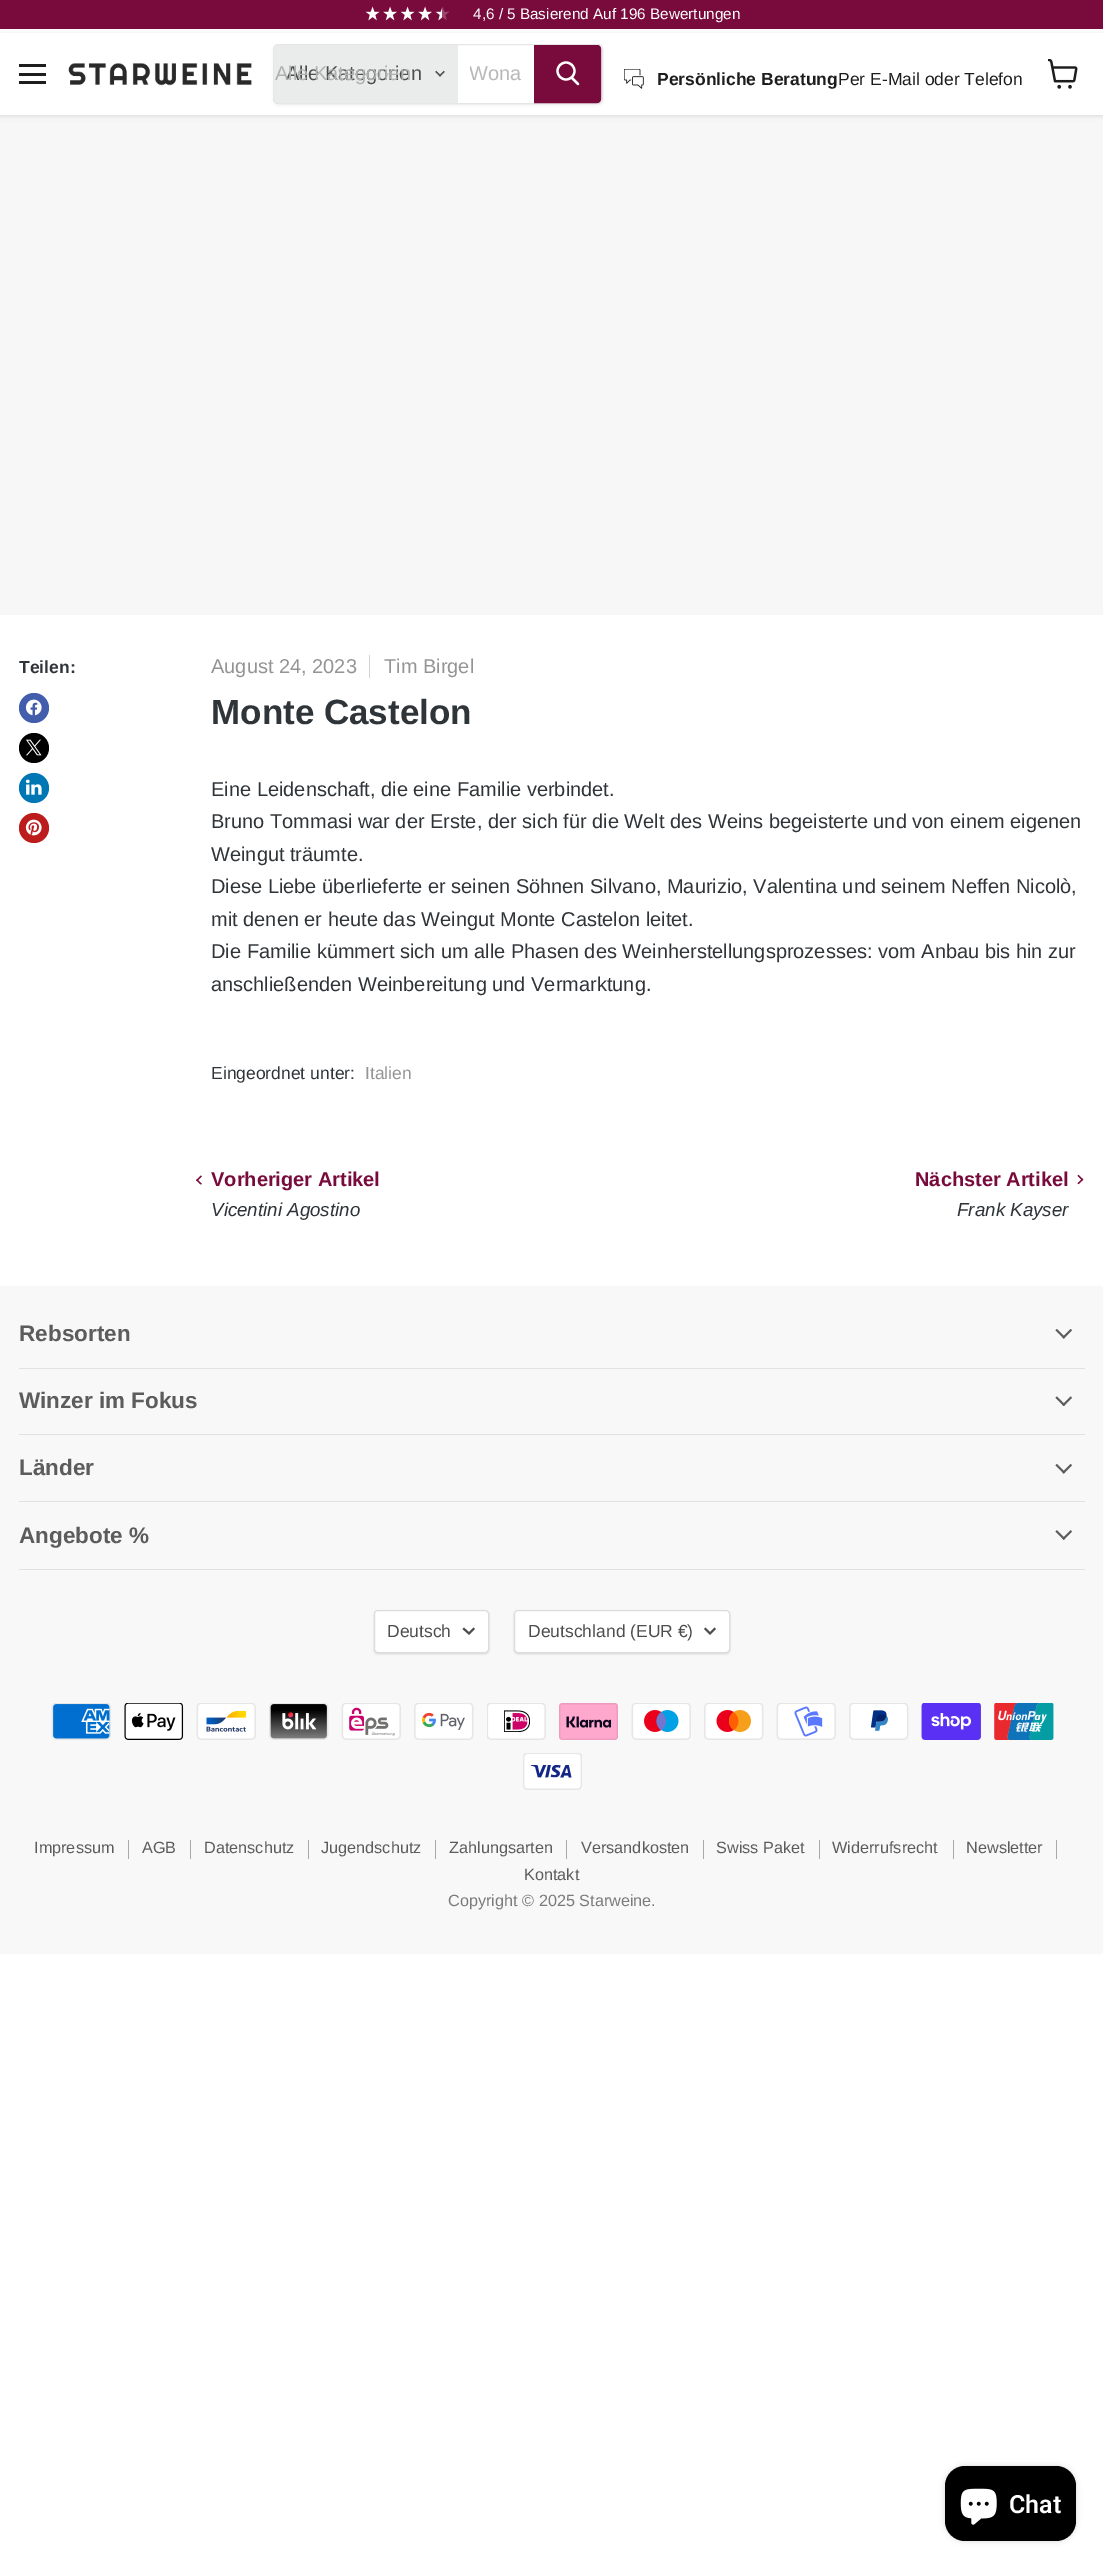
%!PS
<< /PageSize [1103 2567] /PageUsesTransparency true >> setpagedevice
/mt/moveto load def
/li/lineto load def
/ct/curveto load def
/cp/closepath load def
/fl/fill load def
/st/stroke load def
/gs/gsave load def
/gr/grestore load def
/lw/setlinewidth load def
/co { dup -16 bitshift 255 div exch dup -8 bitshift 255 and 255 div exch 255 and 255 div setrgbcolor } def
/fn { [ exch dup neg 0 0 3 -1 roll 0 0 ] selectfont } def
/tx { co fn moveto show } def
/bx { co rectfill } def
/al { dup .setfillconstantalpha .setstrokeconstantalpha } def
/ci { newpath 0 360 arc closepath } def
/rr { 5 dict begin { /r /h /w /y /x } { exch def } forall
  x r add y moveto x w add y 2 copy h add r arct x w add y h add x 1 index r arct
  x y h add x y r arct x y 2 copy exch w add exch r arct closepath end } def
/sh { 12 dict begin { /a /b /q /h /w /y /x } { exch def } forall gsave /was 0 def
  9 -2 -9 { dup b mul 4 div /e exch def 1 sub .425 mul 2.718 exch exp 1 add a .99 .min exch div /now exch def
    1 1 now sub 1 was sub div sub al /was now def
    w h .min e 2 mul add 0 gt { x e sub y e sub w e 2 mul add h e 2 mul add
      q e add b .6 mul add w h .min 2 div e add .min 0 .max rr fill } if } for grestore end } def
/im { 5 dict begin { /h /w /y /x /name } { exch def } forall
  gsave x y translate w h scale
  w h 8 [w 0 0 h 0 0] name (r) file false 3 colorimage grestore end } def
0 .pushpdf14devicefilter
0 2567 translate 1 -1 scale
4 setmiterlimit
0 0 1103 2567 16#FFFFFF bx
0 0 1103 29 16#780A3C bx
(media/1.raw) 365 6 15 15 im
(media/2.raw) 383 6 14 15 im
(media/1.raw) 400 6 15 15 im
(media/2.raw) 418 6 14 15 im
(media/3.raw) 435 7 15 14 im
0 115 1103 500 16#F7F7F7 bx
gs
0 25 mt 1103 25 li 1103 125 li 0 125 li cp 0 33 mt 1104 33 li 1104 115 li 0 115 li cp eoclip newpath
16#808080 co
0 34 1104 82 0 2.5 .25 sh
gr
19 64 27 3 16#1D1D1D bx
19 73 27 3 16#1D1D1D bx
19 81 27 3 16#1D1D1D bx
(media/4.raw) 68 63 184 23 im
gs
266 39 mt 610 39 li 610 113 li 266 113 li cp 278 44 mt 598 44 li 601 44 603 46 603 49 ct 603 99 li 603 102 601 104 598 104 ct 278 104 li 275 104 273 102 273 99 ct 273 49 li 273 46 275 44 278 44 ct cp eoclip newpath
16#808080 co
273 46 330 60 5 2 .11 sh
gr
0.2 al
16#808080 co
273.5 44.5 329 59 4.5 rr st
1 al
16#EAEBEB co
278 45 mt 458 45 li 458 103 li 278 103 li 276 103 274 101 274 99 ct 274 49 li 274 47 276 45 278 45 ct cp fl
(media/5.raw) 435 70 10 7 im
16#780A3C co
534.5 45.5 mt 597 45.5 li 599 45.5 600.5 47 600.5 49 ct 600.5 99 li 600.5 101 599 102.5 597 102.5 ct 534.5 102.5 li cp gs fl gr
st
16#FFFFFF co
2.2 lw
1 setlinecap
578 84 mt 572 78 li st
0 setlinecap
566 71 8.5 ci st
(media/6.raw) 624 69 20 20 im
(media/7.raw) 1048 59 30 30 im
16#425DAB co
34 708 15 ci fl
(media/8.raw) 25 699 17 17 im
16#000000 co
34 748 15 ci fl
(media/9.raw) 26 739 16 17 im
16#0077B5 co
34 788 15 ci fl
(media/10.raw) 25 779 17 16 im
16#BD1C1C co
34 828 15 ci fl
(media/11.raw) 25 819 17 17 im
369 655 1 23 16#D3D3D3 bx
(media/12.raw) 196 1175 6 10 im
(media/13.raw) 1077 1174 7 11 im
0 1286 1103 668 16#F8F8F8 bx
19 1368 1066 1 16#E1E1E1 bx
(media/14.raw) 1055 1329 18 10 im
19 1434 1066 1 16#E1E1E1 bx
(media/15.raw) 1055 1396 18 10 im
19 1501 1066 1 16#E1E1E1 bx
(media/14.raw) 1055 1464 18 10 im
19 1569 1066 1 16#E1E1E1 bx
(media/16.raw) 1055 1530 18 10 im
16#000000 co
374 1611 115 43 4 1 .15 sh
16#FFFFFF co
374.5 1610.5 114 42 3.5 rr gs fl gr
16#DDDDDD co
1 lw
st
16#4D4D4D co
2 lw
2 setlinecap
469 1633.5 mt 473.5 1629 li 469 1633.5 mt 464 1629 li st
16#000000 co
514 1611 216 43 4 1 .15 sh
16#FFFFFF co
514.5 1610.5 215 42 3.5 rr gs fl gr
16#DDDDDD co
1 lw
0 setlinecap
st
16#4D4D4D co
2 lw
2 setlinecap
710 1633.5 mt 714.5 1629 li 710 1633.5 mt 705.5 1629 li st
(media/17.raw) 51 1703 60 37 im
(media/18.raw) 124 1703 60 37 im
(media/19.raw) 196 1703 60 37 im
(media/20.raw) 269 1703 60 37 im
(media/21.raw) 341 1703 60 37 im
(media/22.raw) 414 1703 60 37 im
(media/23.raw) 487 1703 59 37 im
(media/24.raw) 559 1703 59 37 im
(media/25.raw) 631 1703 60 37 im
(media/26.raw) 704 1703 60 37 im
(media/27.raw) 776 1703 60 37 im
(media/28.raw) 849 1703 60 37 im
(media/29.raw) 921 1703 60 37 im
(media/30.raw) 994 1703 60 37 im
(media/31.raw) 523 1753 59 37 im
128 1840 1 19 16#AAAAAA bx
190 1840 1 19 16#AAAAAA bx
308 1840 1 19 16#AAAAAA bx
435 1840 1 19 16#AAAAAA bx
566 1840 1 19 16#AAAAAA bx
703 1840 1 19 16#AAAAAA bx
819 1840 1 19 16#AAAAAA bx
953 1840 1 19 16#AAAAAA bx
1056 1840 1 19 16#AAAAAA bx
16#000000 co
945 2466 131 75 20 3 .15 sh
945 2466 131 75 20 rr fl
(media/32.raw) 960 2488 37 37 im
(4,6 / 5 Basierend Auf 196 Bewertungen) 473 19 /LiberationSans-Regular 15.3 16#FFFFFF tx
(Alle Kategorien) 286 80 /LiberationSans-Regular 20 16#4D4D4D tx
(Alle Kategorien) 275 80 /LiberationSans-Regular 20 16#AFB0B0 tx
gs
470 63 51 22 rectclip
(Wona) 469 80 /LiberationSans-Regular 20 16#B8B8B8 tx
gr
(Persönliche Beratung) 657 85 /LiberationSans-Bold 17.5 16#1D1D1D tx
(Per E-Mail oder Telefon) 838 85 /LiberationSans-Regular 17.5 16#1D1D1D tx
(Teilen:) 19 673 /LiberationSans-Bold 17.5 16#2E3438 tx
(August 24, 2023) 211 673 /LiberationSans-Regular 20 16#949494 tx
(Tim Birgel) 384 673 /LiberationSans-Regular 20 16#949494 tx
(Monte Castelon) 211 724 /LiberationSans-Bold 35 16#2E3438 tx
(Eine Leidenschaft, die eine Familie verbindet.) 211 796 /LiberationSans-Regular 20 16#2E3438 tx
(Bruno Tommasi war der Erste, der sich für die Welt des Weins begeisterte und von einem eigenen) 211 828 /LiberationSans-Regular 20 16#2E3438 tx
(Weingut träumte.) 211 861 /LiberationSans-Regular 20 16#2E3438 tx
(Diese Liebe überlieferte er seinen Söhnen Silvano, Maurizio, Valentina und seinem Neffen Nicolò,) 211 893 /LiberationSans-Regular 20 16#2E3438 tx
(mit denen er heute das Weingut Monte Castelon leitet.) 211 926 /LiberationSans-Regular 20 16#2E3438 tx
(Die Familie kümmert sich um alle Phasen des Weinherstellungsprozesses: vom Anbau bis hin zur) 211 958 /LiberationSans-Regular 20 16#2E3438 tx
(anschließenden Weinbereitung und Vermarktung.) 211 991 /LiberationSans-Regular 20 16#2E3438 tx
(Eingeordnet unter:) 211 1079 /LiberationSans-Regular 17.5 16#2E3438 tx
(Italien) 365 1079 /LiberationSans-Regular 17.5 16#949494 tx
(Vorheriger Artikel) 211 1186 /LiberationSans-Bold 20 16#780A3C tx
(Vicentini Agostino) 211 1216 /LiberationSans-Italic 18.75 16#2E3438 tx
(Nächster Artikel) 915 1186 /LiberationSans-Bold 20 16#780A3C tx
(Frank Kayser) 957 1216 /LiberationSans-Italic 18.75 16#2E3438 tx
(Rebsorten) 19 1341 /LiberationSans-Bold 22.5 16#5C5C5C tx
(Winzer im Fokus) 19 1408 /LiberationSans-Bold 22.5 16#5C5C5C tx
(Länder) 19 1475 /LiberationSans-Bold 22.5 16#5C5C5C tx
(Angebote %) 19 1543 /LiberationSans-Bold 22.5 16#5C5C5C tx
(Deutsch) 387 1637 /LiberationSans-Regular 17.5 16#4D4D4D tx
(Deutschland \(EUR €\)) 528 1637 /LiberationSans-Regular 17.5 16#4D4D4D tx
(Impressum) 34 1853 /LiberationSans-Regular 16.25 16#5C5C5C tx
(AGB) 142 1853 /LiberationSans-Regular 16.25 16#5C5C5C tx
(Datenschutz) 204 1853 /LiberationSans-Regular 16.25 16#5C5C5C tx
(Jugendschutz) 321 1853 /LiberationSans-Regular 16.25 16#5C5C5C tx
(Zahlungsarten) 449 1853 /LiberationSans-Regular 16.25 16#5C5C5C tx
(Versandkosten) 581 1853 /LiberationSans-Regular 16.25 16#5C5C5C tx
(Swiss Paket) 716 1853 /LiberationSans-Regular 16.25 16#5C5C5C tx
(Widerrufsrecht) 832 1853 /LiberationSans-Regular 16.25 16#5C5C5C tx
(Newsletter) 966 1853 /LiberationSans-Regular 16.25 16#5C5C5C tx
(Kontakt) 524 1880 /LiberationSans-Regular 16.25 16#5C5C5C tx
(Copyright © 2025 Starweine.) 448 1906 /LiberationSans-Regular 16.25 16#7B7B7B tx
(Chat) 1009 2513 /Roboto-SemiBold 25 16#FFFFFF tx
.poppdf14devicefilter showpage
